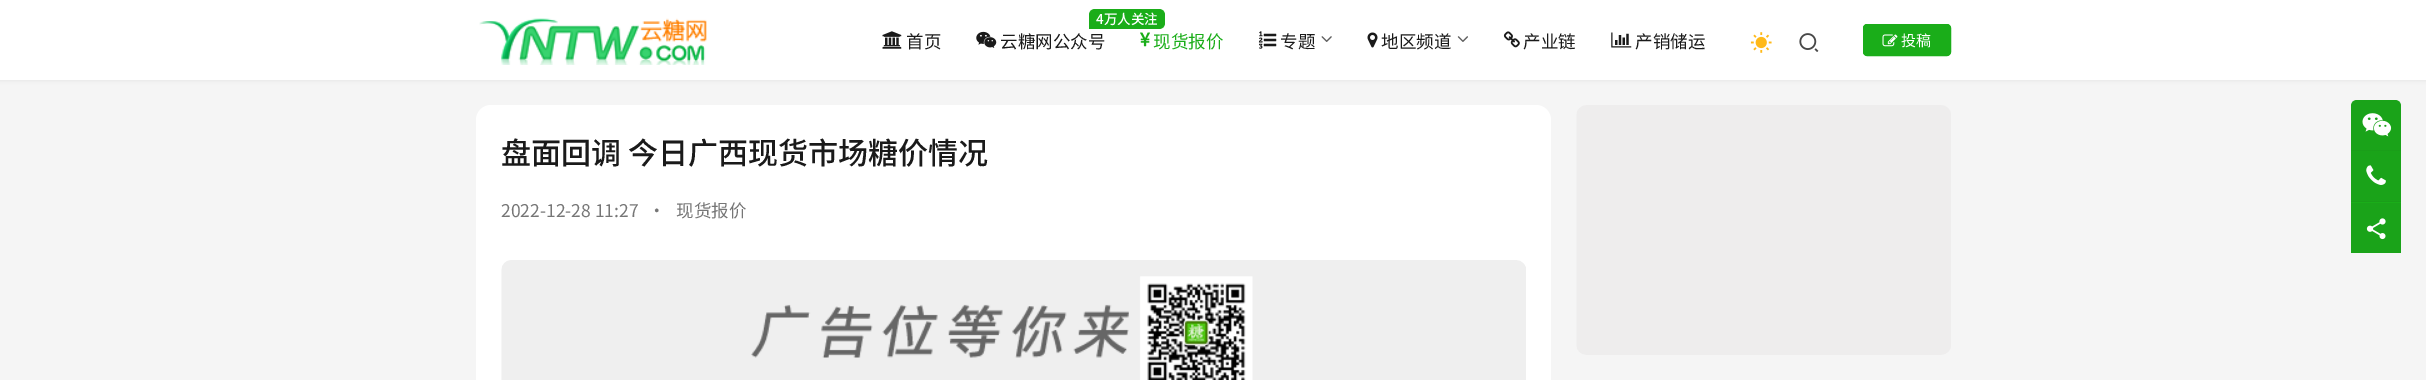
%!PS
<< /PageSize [2426 380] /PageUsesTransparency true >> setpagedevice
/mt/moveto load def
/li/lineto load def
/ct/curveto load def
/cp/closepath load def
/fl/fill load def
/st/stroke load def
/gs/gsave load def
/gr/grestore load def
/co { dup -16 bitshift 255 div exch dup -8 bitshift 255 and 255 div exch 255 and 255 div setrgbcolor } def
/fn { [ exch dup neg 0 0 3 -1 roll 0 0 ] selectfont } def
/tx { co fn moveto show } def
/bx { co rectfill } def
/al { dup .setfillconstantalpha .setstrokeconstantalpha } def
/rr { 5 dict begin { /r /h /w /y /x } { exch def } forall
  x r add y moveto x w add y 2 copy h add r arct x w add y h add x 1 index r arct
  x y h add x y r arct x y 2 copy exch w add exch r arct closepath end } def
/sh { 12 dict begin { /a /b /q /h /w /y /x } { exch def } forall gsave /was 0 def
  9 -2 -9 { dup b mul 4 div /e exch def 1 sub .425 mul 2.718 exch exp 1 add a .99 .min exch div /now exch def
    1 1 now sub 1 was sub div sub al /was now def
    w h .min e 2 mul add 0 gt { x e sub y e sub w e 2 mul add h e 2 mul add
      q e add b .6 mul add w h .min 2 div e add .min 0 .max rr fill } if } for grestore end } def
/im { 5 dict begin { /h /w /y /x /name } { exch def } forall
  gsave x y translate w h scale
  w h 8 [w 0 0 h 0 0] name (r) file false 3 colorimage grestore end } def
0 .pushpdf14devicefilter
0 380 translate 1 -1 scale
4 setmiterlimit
0 0 2426 380 16#F5F5F5 bx
16#1A1A1A co
-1 -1 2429 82 0 2 .06 sh
0 0 2426 80 16#FFFFFF bx
(media/1.raw) 479 18 228 47 im
(media/2.raw) 882 31 20 18 im
16#1AAD19 co
1095 9 mt 1159 9 li 1162.5 9 1165 11.5 1165 15 ct 1165 23 li 1165 26.5 1162.5 29 1159 29 ct 1089 29 li 1089 15 li 1089 11.5 1091.5 9 1095 9 ct cp fl
(media/3.raw) 976 31 21 17 im
(media/4.raw) 1140 32 10 15 im
(media/5.raw) 1258 31 19 18 im
(media/6.raw) 1321 36 11 6 im
(media/7.raw) 1367 32 11 16 im
(media/8.raw) 1457 36 11 6 im
(media/9.raw) 1503 31 17 17 im
(media/10.raw) 1611 32 21 16 im
(media/11.raw) 1750 32 22 21 im
(media/12.raw) 1799 33 20 19 im
1863.5 24.5 87 31 3.5 rr gs fl gr
st
(media/13.raw) 1882 34 16 13 im
16#FFFFFF co
476 105 1075 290 15 rr fl
(media/14.raw) 501 260 1025 120 im
(media/15.raw) 1576 105 375 250 im
16#1AAD19 co
2357 100 mt 2395 100 li 2398.5 100 2401 102.5 2401 106 ct 2401 150 li 2351 150 li 2351 106 li 2351 102.5 2353.5 100 2357 100 ct cp fl
0.07 al
16#1A1A1A co
2357 100 mt 2395 100 li 2398.5 100 2401 102.5 2401 106 ct 2401 150 li 2351 150 li 2351 106 li 2351 102.5 2353.5 100 2357 100 ct cp fl
1 al
(media/16.raw) 2362 113 30 24 im
2351 150 50 1 16#1A9E19 bx
2351 151 50 50 16#1AA319 bx
(media/17.raw) 2366 165 20 20 im
2351 202 50 1 16#1AAD19 bx
2351 201 50 1 16#1A9E19 bx
2351 203 50 50 16#1AA319 bx
(media/18.raw) 2366 218 20 22 im
(首页) 906 48 /NotoSansCJKSC-Regular 17.5 16#1A1A1A tx
(4万人关注) 1096 24 /NotoSansCJKSC-Medium 13.5 16#FFFFFF tx
(云糖网公众号) 1000 48 /NotoSansCJKSC-Regular 17.5 16#1A1A1A tx
(现货报价) 1153 48 /NotoSansCJKSC-Regular 17.5 16#1AAD19 tx
(专题) 1280 48 /NotoSansCJKSC-Regular 17.5 16#1A1A1A tx
(地区频道) 1381 48 /NotoSansCJKSC-Regular 17.5 16#1A1A1A tx
(产业链) 1523 48 /NotoSansCJKSC-Regular 17.5 16#1A1A1A tx
(产销储运) 1635 48 /NotoSansCJKSC-Regular 17.5 16#1A1A1A tx
(投稿) 1901 46 /NotoSansCJKSC-Regular 15 16#FFFFFF tx
(盘面回调 今日广西现货市场糖价情况) 501 164 /NotoSansCJKSC-Medium 30 16#1A1A1A tx
(2022-12-28 11:27) 501 217 /NotoSansCJKSC-Regular 17.5 16#767676 tx
(•) 648 217 /NotoSansCJKSC-Regular 17.5 16#767676 tx
(现货报价) 676 217 /NotoSansCJKSC-Regular 17.5 16#767676 tx
.poppdf14devicefilter showpage
